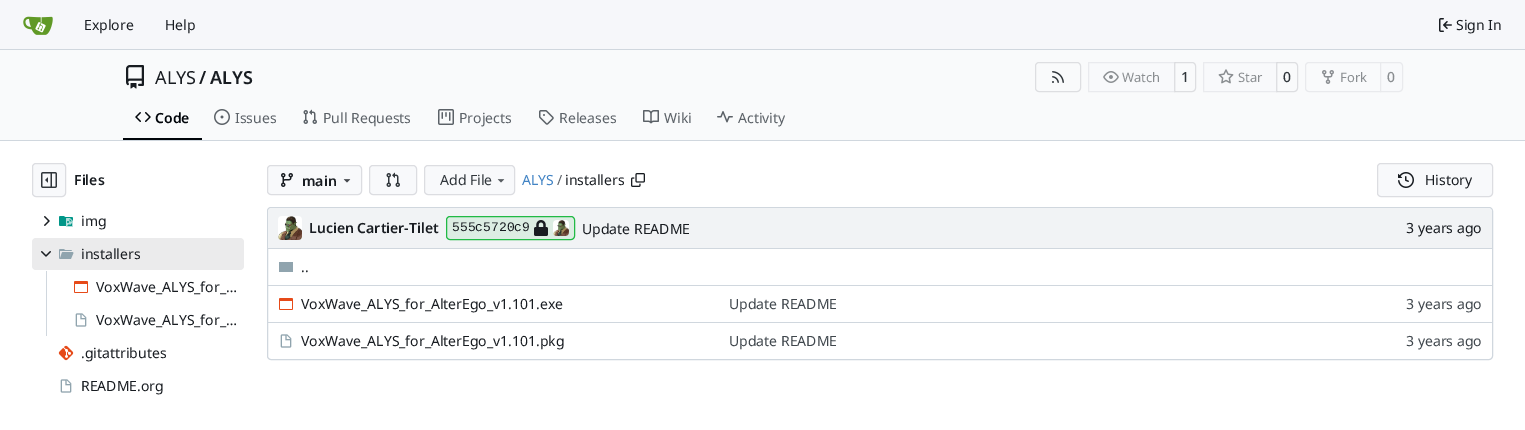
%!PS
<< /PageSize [1525 430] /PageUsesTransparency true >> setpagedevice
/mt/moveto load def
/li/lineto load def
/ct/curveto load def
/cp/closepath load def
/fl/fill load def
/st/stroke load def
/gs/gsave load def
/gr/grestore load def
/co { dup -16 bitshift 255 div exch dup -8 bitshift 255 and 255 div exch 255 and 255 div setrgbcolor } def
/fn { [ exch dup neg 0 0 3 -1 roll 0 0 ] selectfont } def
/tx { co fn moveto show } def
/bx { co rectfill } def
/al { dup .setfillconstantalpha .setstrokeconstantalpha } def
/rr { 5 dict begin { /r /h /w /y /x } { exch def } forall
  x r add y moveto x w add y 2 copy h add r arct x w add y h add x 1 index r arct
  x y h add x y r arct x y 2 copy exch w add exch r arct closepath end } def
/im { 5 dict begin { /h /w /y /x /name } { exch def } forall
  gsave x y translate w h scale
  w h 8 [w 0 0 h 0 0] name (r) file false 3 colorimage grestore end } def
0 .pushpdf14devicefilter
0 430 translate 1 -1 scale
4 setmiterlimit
0 0 1525 430 16#FFFFFF bx
0 0 1525 49 16#F6F7FA bx
0 49 1525 1 16#D0D7DE bx
(media/1.raw) 23 16 30 19 im
(media/2.raw) 1439 18 13 14 im
0 50 1525 90 16#F9FAFB bx
(media/3.raw) 126 65 18 24 im
16#DDDEE1 co
1035.5 62.5 45 29 3.5 rr st
(media/4.raw) 1052 71 12 12 im
1174.5 62.5 mt 1192 62.5 li 1194 62.5 1195.5 64 1195.5 66 ct 1195.5 88 li 1195.5 90 1194 91.5 1192 91.5 ct 1174.5 91.5 li cp st
0.55 al
16#F8F9FB co
1092 62 mt 1175 62 li 1175 92 li 1092 92 li 1090 92 1088 90 1088 88 ct 1088 66 li 1088 64 1090 62 1092 62 ct cp fl
0.06 al
16#000017 co
1088.5 62.5 86 29 rectstroke
1 al
(media/5.raw) 1103 71 16 12 im
16#DDDEE1 co
1276.5 62.5 mt 1294 62.5 li 1296 62.5 1297.5 64 1297.5 66 ct 1297.5 88 li 1297.5 90 1296 91.5 1294 91.5 ct 1276.5 91.5 li cp st
0.55 al
16#F8F9FB co
1207 62 mt 1277 62 li 1277 92 li 1207 92 li 1205 92 1203 90 1203 88 ct 1203 66 li 1203 64 1205 62 1207 62 ct cp fl
0.06 al
16#000017 co
1203.5 62.5 73 29 rectstroke
1 al
(media/6.raw) 1218 69 16 15 im
16#E9EAED co
1309 62.5 mt 1380.5 62.5 li 1380.5 91.5 li 1309 91.5 li 1307 91.5 1305.5 90 1305.5 88 ct 1305.5 66 li 1305.5 64 1307 62.5 1309 62.5 ct cp st
(media/7.raw) 1322 70 12 14 im
16#F8F9FB co
1380.5 62.5 mt 1399 62.5 li 1401 62.5 1402.5 64 1402.5 66 ct 1402.5 88 li 1402.5 90 1401 91.5 1399 91.5 ct 1380.5 91.5 li cp gs fl gr
16#E9EAED co
st
123 138 79 2 16#01050A bx
(media/8.raw) 135 112 16 10 im
(media/9.raw) 214 109 16 16 im
(media/10.raw) 303 109 14 15 im
(media/11.raw) 438 109 16 16 im
(media/12.raw) 539 110 15 15 im
(media/13.raw) 643 110 16 14 im
(media/14.raw) 717 111 16 12 im
0 140 1525 1 16#D0D7DE bx
16#F8F9FB co
32.5 163.5 33 33 3.5 rr gs fl gr
16#DCDDE1 co
st
(media/15.raw) 41 172 16 16 im
(media/16.raw) 44 216 6 10 im
(media/17.raw) 59 216 14 11 im
16#EBEBEC co
32 238 212 32 4 rr fl
(media/18.raw) 41 251 10 6 im
(media/19.raw) 59 249 15 10 im
46 271 1 65 16#D0D7DE bx
(media/20.raw) 74 281 14 12 im
(media/21.raw) 75 313 12 14 im
(media/22.raw) 58 345 16 16 im
(media/21.raw) 60 379 12 14 im
16#F8F9FB co
267.5 165.5 94 29 3.5 rr gs fl gr
16#DCDDE1 co
st
(media/23.raw) 281 173 12 14 im
(media/24.raw) 343 179 8 4 im
16#F8F9FB co
369.5 165.5 47 29 3.5 rr gs fl gr
16#DCDDE1 co
st
(media/25.raw) 386 172 14 15 im
16#F8F9FB co
424.5 165.5 90 29 3.5 rr gs fl gr
16#DCDDE1 co
st
(media/26.raw) 497 179 8 4 im
(media/27.raw) 631 173 14 14 im
16#F8F9FB co
1377.5 163.5 115 33 3.5 rr gs fl gr
16#DCDDE1 co
st
(media/28.raw) 1398 172 16 16 im
16#D0D7DE co
267.5 207.5 1225 152 3.5 rr st
16#F1F3F5 co
272 208 mt 1488 208 li 1490 208 1492 210 1492 212 ct 1492 248 li 268 248 li 268 212 li 268 210 270 208 272 208 ct cp fl
(media/29.raw) 278 216 24 24 im
16#DCEDE3 co
446.5 216.5 128 23 3.5 rr gs fl gr
16#21BA45 co
st
(media/30.raw) 534 220 14 16 im
(media/31.raw) 553 220 16 16 im
268 248 1224 1 16#D0D7DE bx
279 262 14 10 16#90A4AE bx
268 285 1128 1 16#D0D7DE bx
(media/20.raw) 279 298 14 12 im
1396 285 96 1 16#D0D7DE bx
268 322 1128 1 16#D0D7DE bx
(media/21.raw) 280 334 12 14 im
1396 322 96 1 16#D0D7DE bx
(Explore) 84 30 /NotoSans-Regular 14 16#181C21 tx
(Help) 165 30 /NotoSans-Regular 14 16#181C21 tx
(Sign In) 1456 30 /NotoSans-Regular 14 16#181C21 tx
(ALYS) 155 84 /NotoSans-Regular 18 16#181C21 tx
(/) 199 84 /NotoSans-SemiBold 18 16#181C21 tx
(ALYS) 210 84 /NotoSans-SemiBold 18 16#181C21 tx
(Watch) 1122 82 /NotoSans-Regular 13 16#8A8E91 tx
(1) 1181 82 /NotoSans-Medium 14 16#30363B tx
(Star) 1238 82 /NotoSans-Regular 13 16#8A8E91 tx
(0) 1283 82 /NotoSans-Medium 14 16#30363B tx
(Fork) 1340 82 /NotoSans-Regular 13 16#8A8E91 tx
(0) 1387 82 /NotoSans-Medium 14 16#8A8E91 tx
(Code) 155 123 /NotoSans-SemiBold 14 16#01050A tx
(Issues) 235 123 /NotoSans-Regular 14 16#5B6167 tx
(Pull Requests) 323 123 /NotoSans-Regular 14 16#5B6167 tx
(Projects) 459 123 /NotoSans-Regular 14 16#5B6167 tx
(Releases) 559 123 /NotoSans-Regular 14 16#5B6167 tx
(Wiki) 664 123 /NotoSans-Regular 14 16#5B6167 tx
(Activity) 738 123 /NotoSans-Regular 14 16#5B6167 tx
(Files) 74 185 /NotoSans-SemiBold 14 16#181C21 tx
(img) 81 226 /NotoSans-Regular 14 16#181C21 tx
(installers) 81 259 /NotoSans-Regular 14 16#181C21 tx
(VoxWave_ALYS_for_…) 96 292 /NotoSans-Regular 14 16#181C21 tx
(VoxWave_ALYS_for_…) 96 325 /NotoSans-Regular 14 16#181C21 tx
(.gitattributes) 81 358 /NotoSans-Regular 14 16#181C21 tx
(README.org) 81 391 /NotoSans-Regular 14 16#181C21 tx
(main) 302 186 /NotoSans-SemiBold 14 16#181C21 tx
(Add File) 440 185 /NotoSans-Regular 14 16#30363B tx
(ALYS) 522 185 /NotoSans-Regular 14 16#4183C4 tx
(/) 557 185 /NotoSans-Regular 14 16#5B6167 tx
(installers) 565 185 /NotoSans-Regular 14 16#181C21 tx
(History) 1425 185 /NotoSans-Regular 14 16#181C21 tx
(Lucien Cartier-Tilet) 309 233 /NotoSans-SemiBold 14 16#181C21 tx
(555c5720c9) 452 231 /LiberationMono-Regular 13 16#181C21 tx
(Update README) 582 234 /NotoSans-Regular 14 16#181C21 tx
(3 years ago) 1406 233 /NotoSans-Regular 14 16#181C21 tx
(..) 301 272 /NotoSans-Regular 14 16#181C21 tx
(VoxWave_ALYS_for_AlterEgo_v1.101.exe) 301 309 /NotoSans-Regular 14 16#181C21 tx
(Update README) 729 309 /NotoSans-Regular 14 16#40474D tx
(3 years ago) 1406 309 /NotoSans-Regular 14 16#40474D tx
(VoxWave_ALYS_for_AlterEgo_v1.101.pkg) 301 346 /NotoSans-Regular 14 16#181C21 tx
(Update README) 729 346 /NotoSans-Regular 14 16#40474D tx
(3 years ago) 1406 346 /NotoSans-Regular 14 16#40474D tx
.poppdf14devicefilter showpage
